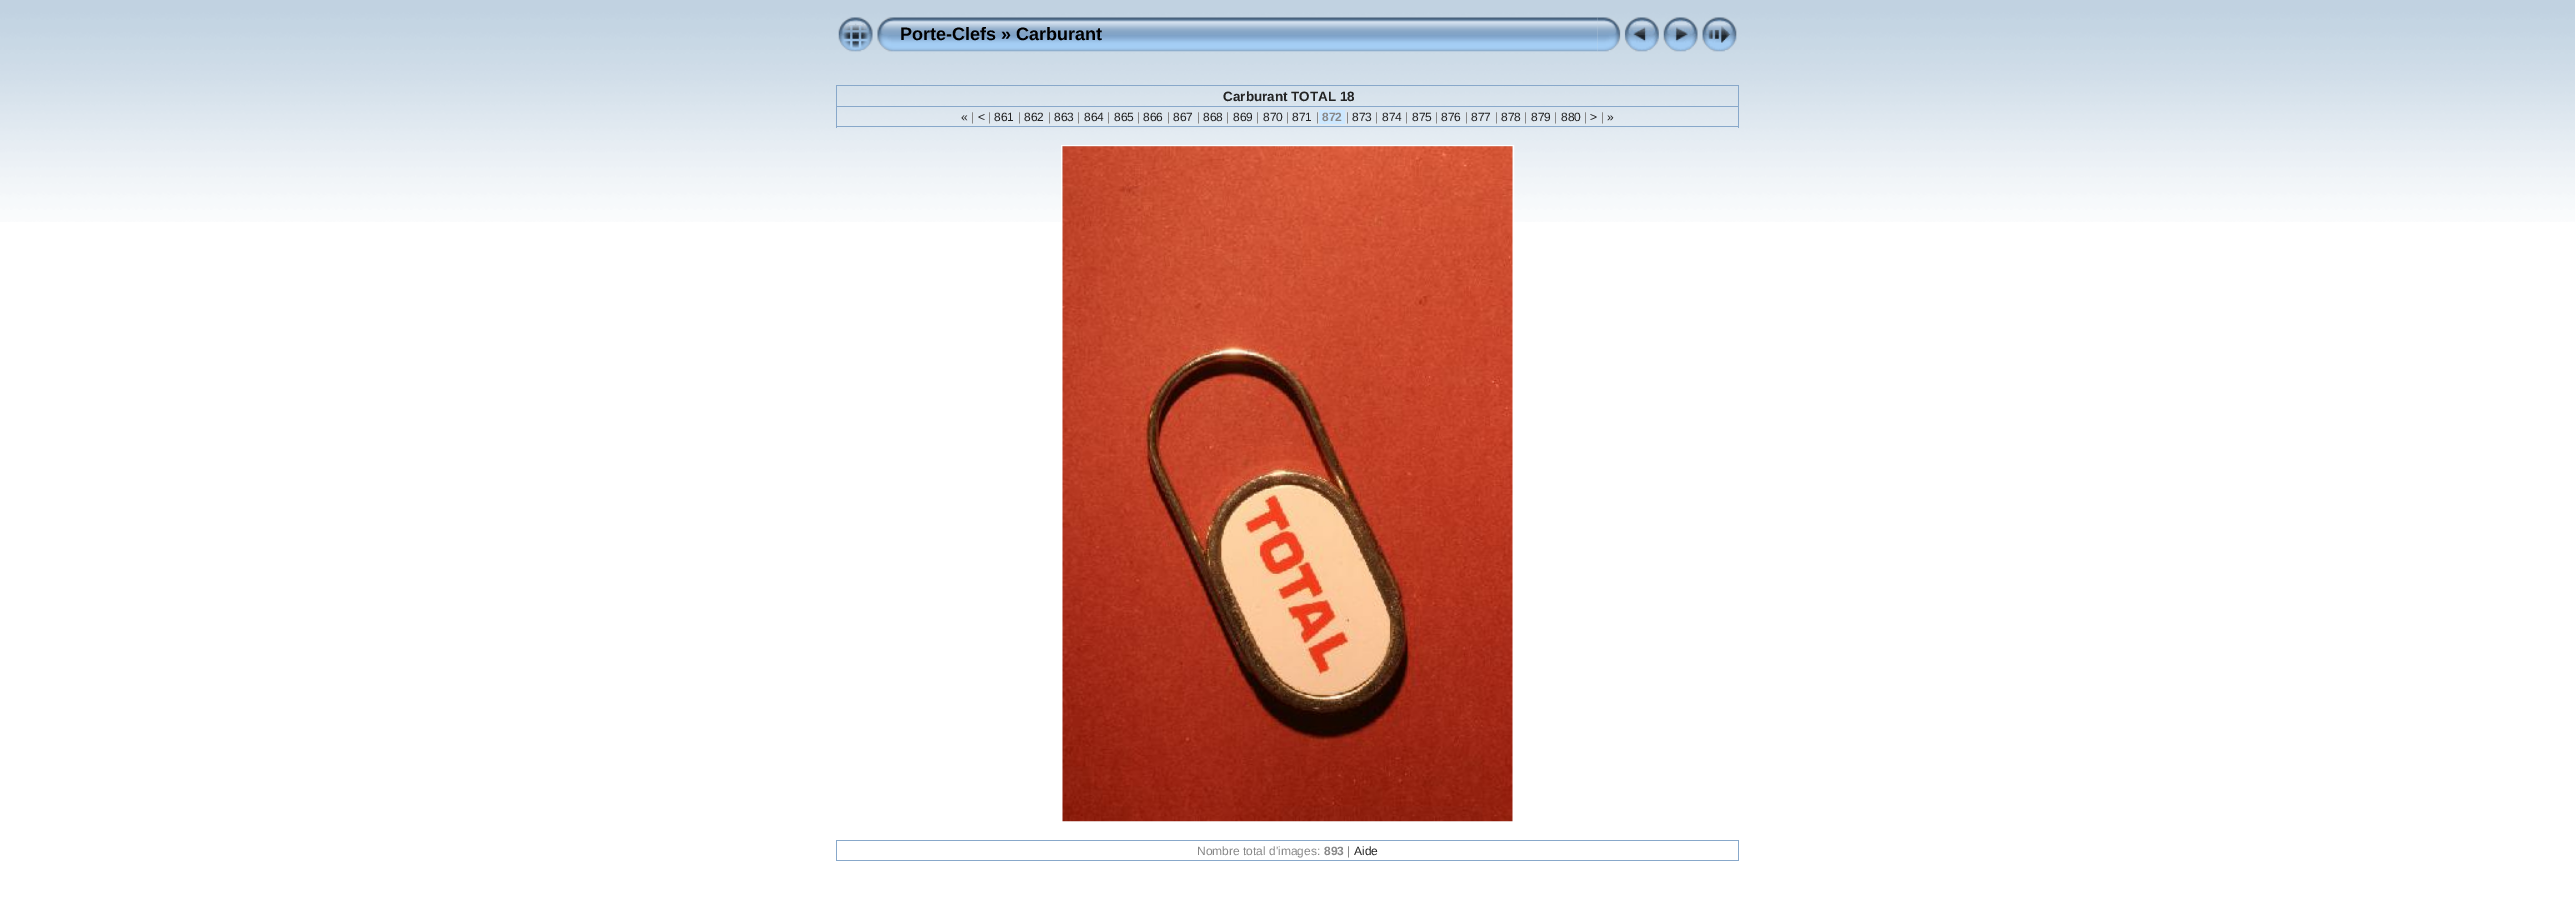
%!PS
<< /PageSize [2575 908] >> setpagedevice
/co { dup -16 bitshift 255 div exch dup -8 bitshift 255 and 255 div exch 255 and 255 div setrgbcolor } def
/fn { [ exch dup neg 0 0 3 -1 roll 0 0 ] selectfont } def
/tx { co fn moveto show } def
/bx { co rectfill } def
/im { 5 dict begin { /h /w /y /x /name } { exch def } forall
  gsave x y translate w h scale
  w h 8 [w 0 0 h 0 0] name (r) file false 3 colorimage grestore end } def
0 908 translate 1 -1 scale
4 setmiterlimit
0 0 2575 908 16#FFFFFF bx
(media/1.raw) 0 0 2575 222 im
(media/2.raw) 838 17 35 35 im
(media/3.raw) 877 17 23 35 im
(media/4.raw) 900 17 698 35 im
(media/5.raw) 1597 17 24 35 im
(media/6.raw) 1624 17 35 35 im
(media/7.raw) 1663 17 35 35 im
(media/8.raw) 1702 17 35 35 im
836 85 903 1 16#88A8CA bx
1738 85 1 43 16#88A8CA bx
836 126 903 1 16#88A8CA bx
836 85 1 43 16#88A8CA bx
836 106 903 1 16#88A8CA bx
1319 110 26 14 16#CCE8FF bx
16#FFFFFF co
1061.5 145.5 452 677 rectstroke
(media/9.raw) 1062 146 451 676 im
836 840 903 1 16#88A8CA bx
1738 840 1 21 16#88A8CA bx
836 860 903 1 16#88A8CA bx
836 840 1 21 16#88A8CA bx
(Porte-Clefs » Carburant) 900 40 /LiberationSans-Bold 18 16#000000 tx
(Carburant TOTAL 18) 1223 101 /LiberationSans-Bold 13.5 16#222222 tx
(«) 961 121 /LiberationSans-Regular 12 16#222222 tx
(|) 971 121 /LiberationSans-Regular 12 16#888888 tx
(<) 978 121 /LiberationSans-Regular 12 16#222222 tx
(|) 988 121 /LiberationSans-Regular 12 16#888888 tx
(861) 994 121 /LiberationSans-Regular 12 16#222222 tx
(|) 1018 121 /LiberationSans-Regular 12 16#888888 tx
(862) 1024 121 /LiberationSans-Regular 12 16#222222 tx
(|) 1048 121 /LiberationSans-Regular 12 16#888888 tx
(863) 1054 121 /LiberationSans-Regular 12 16#222222 tx
(|) 1077 121 /LiberationSans-Regular 12 16#888888 tx
(864) 1084 121 /LiberationSans-Regular 12 16#222222 tx
(|) 1107 121 /LiberationSans-Regular 12 16#888888 tx
(865) 1114 121 /LiberationSans-Regular 12 16#222222 tx
(|) 1137 121 /LiberationSans-Regular 12 16#888888 tx
(866) 1143 121 /LiberationSans-Regular 12 16#222222 tx
(|) 1167 121 /LiberationSans-Regular 12 16#888888 tx
(867) 1173 121 /LiberationSans-Regular 12 16#222222 tx
(|) 1197 121 /LiberationSans-Regular 12 16#888888 tx
(868) 1203 121 /LiberationSans-Regular 12 16#222222 tx
(|) 1226 121 /LiberationSans-Regular 12 16#888888 tx
(869) 1233 121 /LiberationSans-Regular 12 16#222222 tx
(|) 1256 121 /LiberationSans-Regular 12 16#888888 tx
(870) 1263 121 /LiberationSans-Regular 12 16#222222 tx
(|) 1286 121 /LiberationSans-Regular 12 16#888888 tx
(871) 1292 121 /LiberationSans-Regular 12 16#222222 tx
(|) 1316 121 /LiberationSans-Regular 12 16#888888 tx
(872) 1322 121 /LiberationSans-Bold 12 16#888888 tx
(|) 1346 121 /LiberationSans-Regular 12 16#888888 tx
(873) 1352 121 /LiberationSans-Regular 12 16#222222 tx
(|) 1375 121 /LiberationSans-Regular 12 16#888888 tx
(874) 1382 121 /LiberationSans-Regular 12 16#222222 tx
(|) 1405 121 /LiberationSans-Regular 12 16#888888 tx
(875) 1412 121 /LiberationSans-Regular 12 16#222222 tx
(|) 1435 121 /LiberationSans-Regular 12 16#888888 tx
(876) 1441 121 /LiberationSans-Regular 12 16#222222 tx
(|) 1465 121 /LiberationSans-Regular 12 16#888888 tx
(877) 1471 121 /LiberationSans-Regular 12 16#222222 tx
(|) 1495 121 /LiberationSans-Regular 12 16#888888 tx
(878) 1501 121 /LiberationSans-Regular 12 16#222222 tx
(|) 1524 121 /LiberationSans-Regular 12 16#888888 tx
(879) 1531 121 /LiberationSans-Regular 12 16#222222 tx
(|) 1554 121 /LiberationSans-Regular 12 16#888888 tx
(880) 1561 121 /LiberationSans-Regular 12 16#222222 tx
(|) 1584 121 /LiberationSans-Regular 12 16#888888 tx
(>) 1590 121 /LiberationSans-Regular 12 16#222222 tx
(|) 1601 121 /LiberationSans-Regular 12 16#888888 tx
(») 1607 121 /LiberationSans-Regular 12 16#222222 tx
(Nombre total d'images:) 1197 855 /LiberationSans-Regular 12 16#888888 tx
(893) 1324 855 /LiberationSans-Bold 12 16#888888 tx
(|) 1347 855 /LiberationSans-Regular 12 16#888888 tx
(Aide) 1354 855 /LiberationSans-Regular 12 16#222222 tx
showpage
